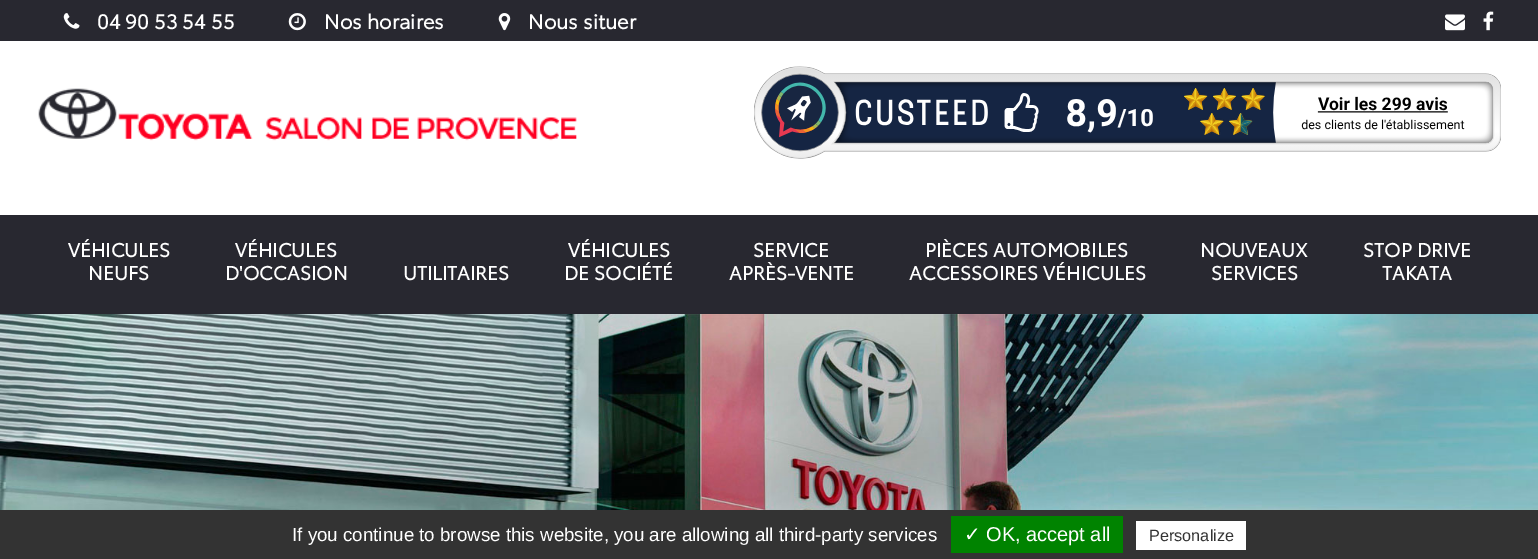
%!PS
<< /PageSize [1538 559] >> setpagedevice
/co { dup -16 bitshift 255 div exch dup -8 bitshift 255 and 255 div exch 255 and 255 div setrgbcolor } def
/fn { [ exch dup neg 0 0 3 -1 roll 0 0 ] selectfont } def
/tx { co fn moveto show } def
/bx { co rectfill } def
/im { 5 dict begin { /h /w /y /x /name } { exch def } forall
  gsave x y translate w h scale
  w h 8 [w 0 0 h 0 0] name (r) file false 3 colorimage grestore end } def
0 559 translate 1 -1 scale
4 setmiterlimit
0 0 1538 559 16#FFFFFF bx
0 0 1538 41 16#282830 bx
(media/1.raw) 63 13 17 16 im
(media/2.raw) 288 13 18 18 im
(media/3.raw) 498 13 13 18 im
(media/4.raw) 1445 14 20 17 im
(media/5.raw) 1483 11 11 20 im
(media/6.raw) 38 88 79 51 im
(media/7.raw) 118 113 459 28 im
(media/8.raw) 754 66 747 93 im
0 215 1538 99 16#282830 bx
(media/9.raw) 0 314 1538 196 im
0 510 1538 49 16#333333 bx
951 516 172 37 16#008300 bx
1136 521 110 29 16#FFFFFF bx
(04 90 53 54 55) 97 29 /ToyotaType-Bold 20 16#FFFFFF tx
(Nos horaires) 324 29 /ToyotaType-Bold 20 16#FFFFFF tx
(Nous situer) 528 29 /ToyotaType-Bold 20 16#FFFFFF tx
(VÉHICULES) 68 257 /ToyotaType-Bold 19 16#FFFFFF tx
(NEUFS) 88 280 /ToyotaType-Bold 19 16#FFFFFF tx
(VÉHICULES) 235 257 /ToyotaType-Bold 19 16#FFFFFF tx
(D'OCCASION) 225 280 /ToyotaType-Bold 19 16#FFFFFF tx
(UTILITAIRES) 403 280 /ToyotaType-Bold 19 16#FFFFFF tx
(VÉHICULES) 568 257 /ToyotaType-Bold 19 16#FFFFFF tx
(DE SOCIÉTÉ) 564 280 /ToyotaType-Bold 19 16#FFFFFF tx
(SERVICE) 753 257 /ToyotaType-Bold 19 16#FFFFFF tx
(APRÈS-VENTE) 729 280 /ToyotaType-Bold 19 16#FFFFFF tx
(PIÈCES AUTOMOBILES) 925 257 /ToyotaType-Bold 19 16#FFFFFF tx
(ACCESSOIRES VÉHICULES) 909 280 /ToyotaType-Bold 19 16#FFFFFF tx
(NOUVEAUX) 1200 257 /ToyotaType-Bold 19 16#FFFFFF tx
(SERVICES) 1211 280 /ToyotaType-Bold 19 16#FFFFFF tx
(STOP DRIVE) 1363 257 /ToyotaType-Bold 19 16#FFFFFF tx
(TAKATA) 1382 280 /ToyotaType-Bold 19 16#FFFFFF tx
(If you continue to browse this website, you are allowing all third-party services) 292 541 /LiberationSans-Regular 18.75 16#FFFFFF tx
(✓) 964 541 /DejaVuSans-Regular 20 16#FFFFFF tx
(OK, accept all) 986 541 /LiberationSans-Regular 20 16#FFFFFF tx
(Personalize) 1149 541 /LiberationSans-Regular 16.25 16#333333 tx
showpage
